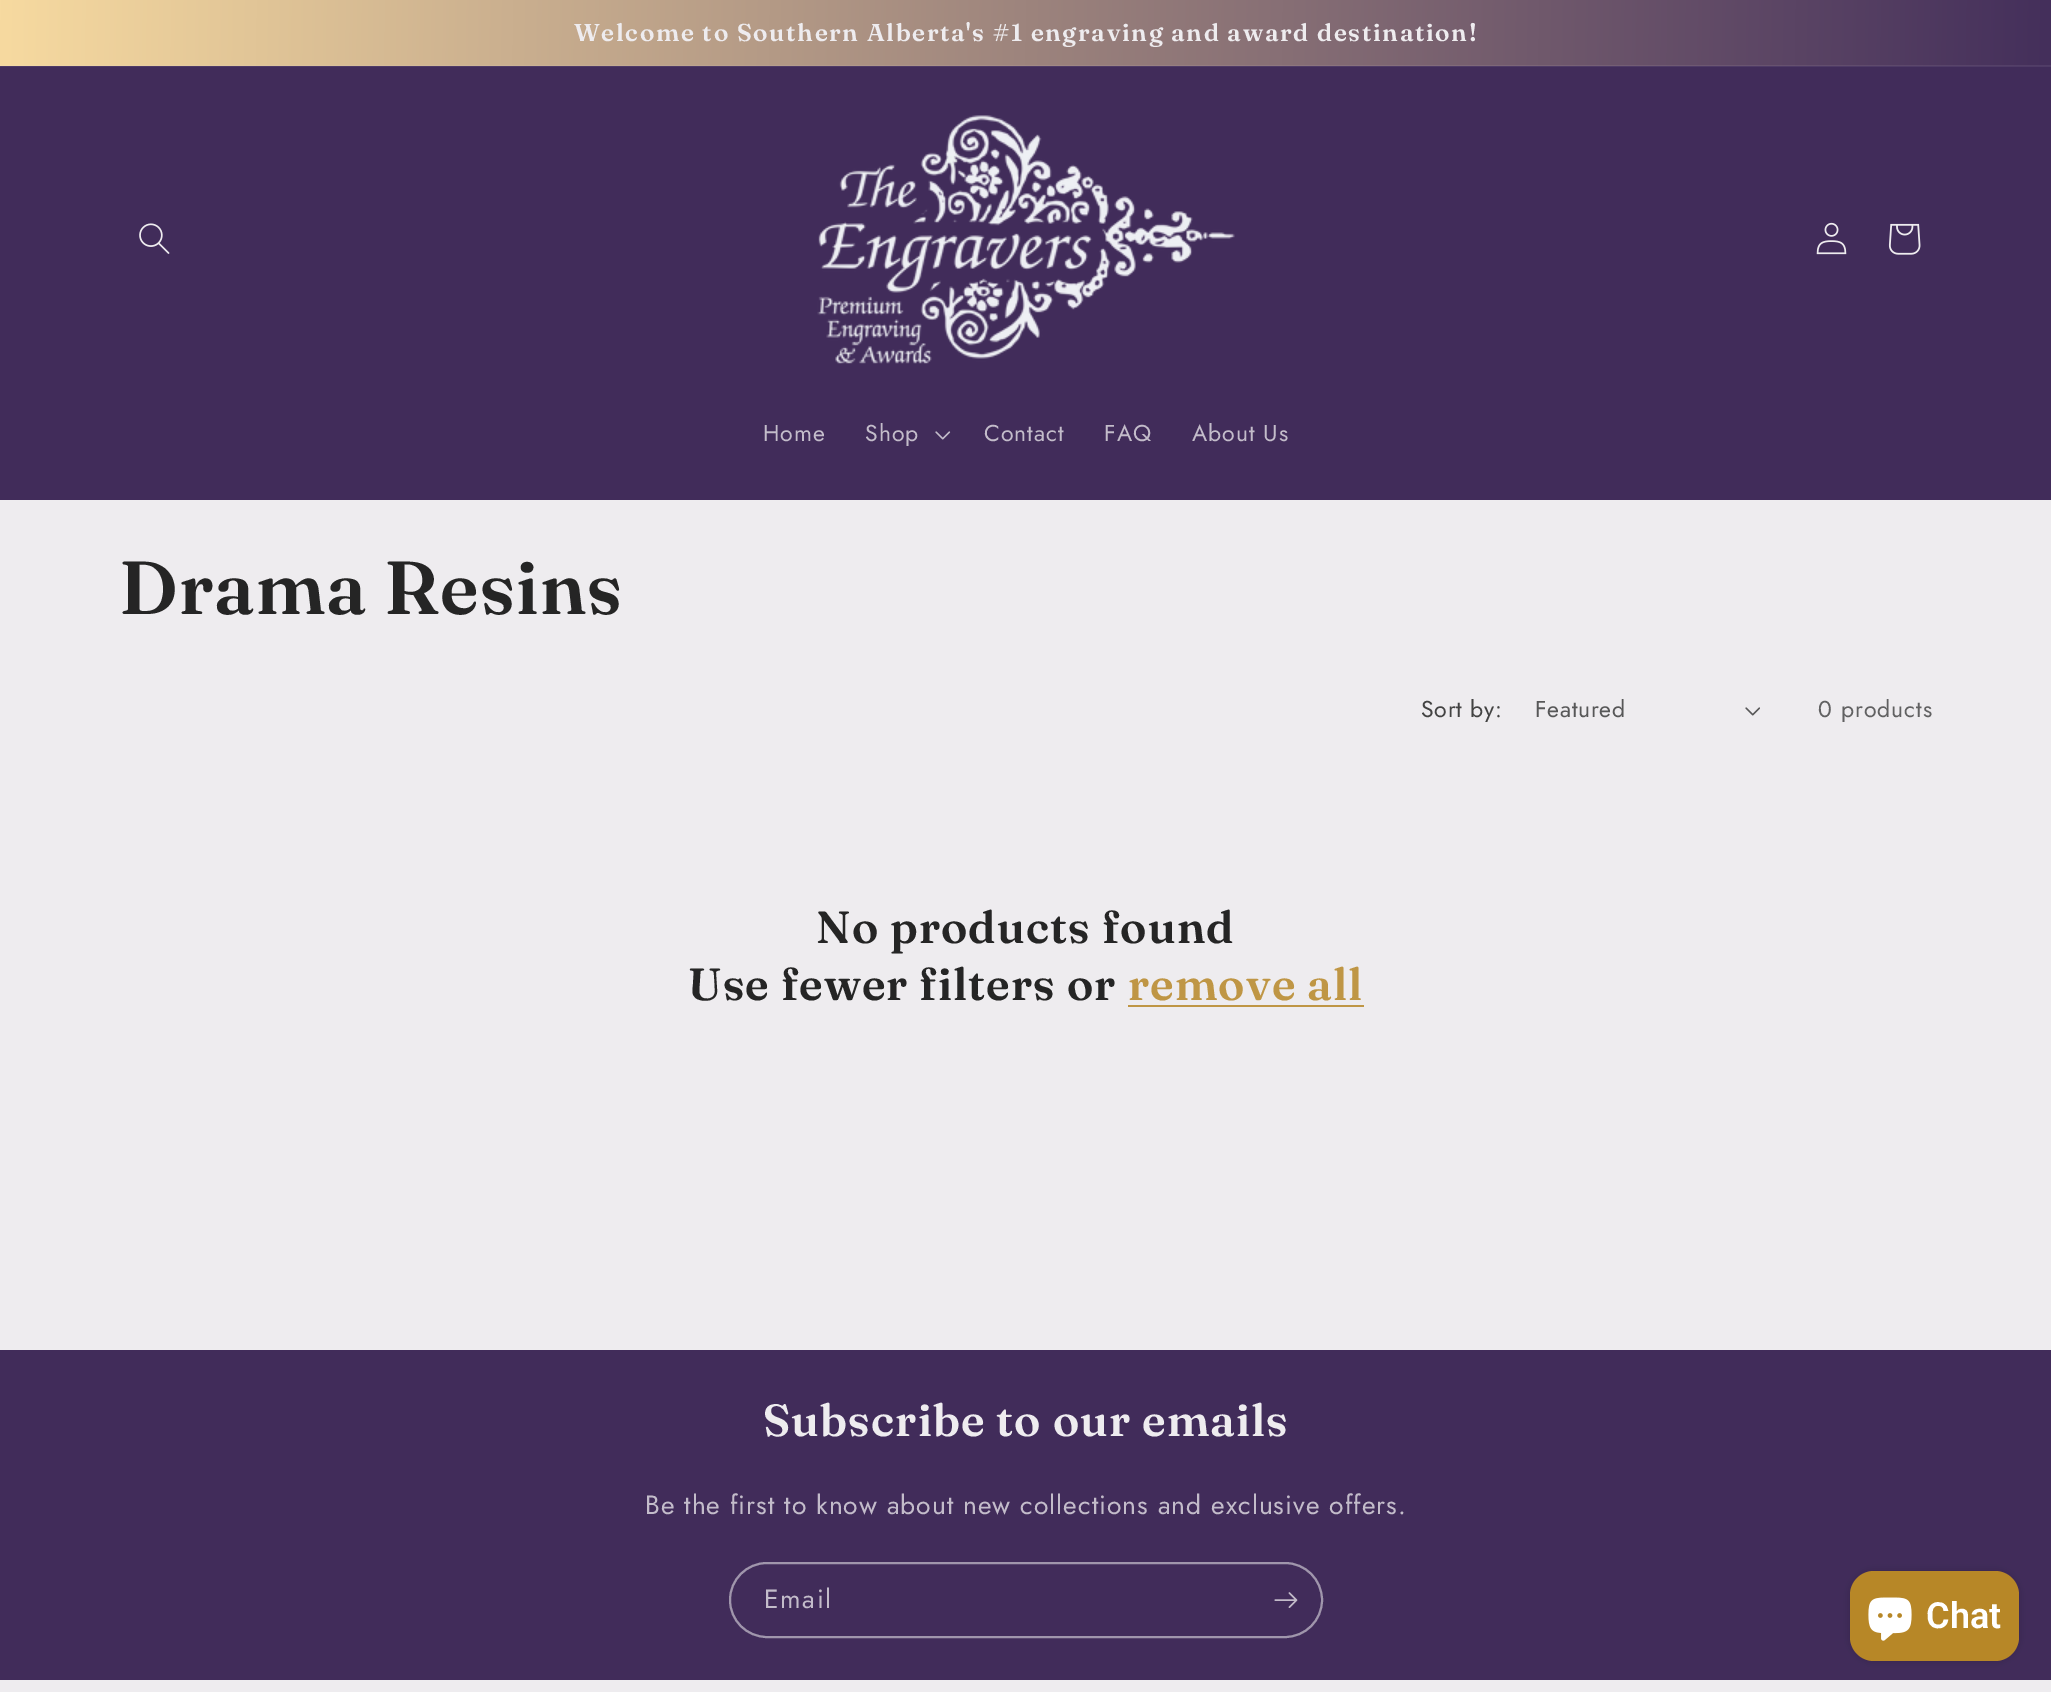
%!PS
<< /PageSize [2051 1692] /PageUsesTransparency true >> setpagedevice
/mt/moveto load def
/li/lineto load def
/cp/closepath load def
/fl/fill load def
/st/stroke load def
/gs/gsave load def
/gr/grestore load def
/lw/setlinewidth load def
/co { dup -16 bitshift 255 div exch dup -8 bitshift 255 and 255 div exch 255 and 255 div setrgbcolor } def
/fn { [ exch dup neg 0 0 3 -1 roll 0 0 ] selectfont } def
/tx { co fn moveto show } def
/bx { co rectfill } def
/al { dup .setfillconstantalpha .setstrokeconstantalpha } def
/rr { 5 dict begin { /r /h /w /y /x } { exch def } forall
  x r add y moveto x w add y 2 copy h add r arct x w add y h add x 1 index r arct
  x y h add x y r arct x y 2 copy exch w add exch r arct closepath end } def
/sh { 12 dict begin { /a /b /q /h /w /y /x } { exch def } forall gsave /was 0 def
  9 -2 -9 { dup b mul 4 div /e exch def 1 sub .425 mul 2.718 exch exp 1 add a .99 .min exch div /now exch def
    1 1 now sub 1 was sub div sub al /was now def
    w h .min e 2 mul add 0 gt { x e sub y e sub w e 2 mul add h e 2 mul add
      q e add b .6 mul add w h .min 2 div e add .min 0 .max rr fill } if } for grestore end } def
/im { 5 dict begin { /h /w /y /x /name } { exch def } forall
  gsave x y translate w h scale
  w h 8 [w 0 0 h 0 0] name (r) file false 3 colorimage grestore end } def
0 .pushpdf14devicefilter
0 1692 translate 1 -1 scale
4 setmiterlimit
0 0 2051 1692 16#412C5A bx
0 66 2051 1 16#4F3B66 bx
gs 0 0 mt 2051 0 li 2051 65 li 0 65 li cp clip newpath
<< /ShadingType 2 /ColorSpace /DeviceRGB /Coords [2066 864 -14 828] /Extend [true true] /Function << /FunctionType 2 /Domain [0 1] /C0 [.255 .173 .353] /C1 [.969 .855 .627] /N 1 >> >> shfill gr
gs 0 65 mt 2051 65 li 2051 66 li 0 66 li cp clip newpath
<< /ShadingType 2 /ColorSpace /DeviceRGB /Coords [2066 864 -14 828] /Extend [true true] /Function << /FunctionType 2 /Domain [0 1] /C0 [.31 .231 .4] /C1 [.965 .859 .651] /N 1 >> >> shfill gr
(media/1.raw) 139 223 31 31 im
(media/2.raw) 817 115 418 249 im
(media/3.raw) 1816 222 31 33 im
(media/4.raw) 1888 223 33 32 im
(media/5.raw) 935 431 16 9 im
0 500 2051 850 16#EEECEF bx
(media/6.raw) 1745 707 15 9 im
1128 1005 236 2 16#BF9645 bx
16#A096AC co
2 lw
730 1563 592 74 37 rr st
(media/7.raw) 1274 1592 24 16 im
16#000000 co
1850 1571 169 90 24 4 .15 sh
16#B78727 co
1850 1571 169 90 24 rr fl
(media/8.raw) 1868 1597 44 44 im
0 1680 2051 12 16#EEECEF bx
/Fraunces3-SemiBold 24.4 fn
574 41 mt 1.65 0 (Welcome to Southern Alberta's #1 engraving and award destination!) ashow
/Jost-Regular 23 fn
16#C3BCCA co
763 441 mt 1 0 (Home) ashow
865 441 mt 1 0 (Shop) ashow
984 441 mt 1 0 (Contact) ashow
1104 441 mt 1 0 (FAQ) ashow
1192 441 mt 1 0 (About Us) ashow
/Fraunces-SemiBold 75 fn
16#252525 co
119 614 mt 1.1 0 (Drama Resins) ashow
/Jost-Regular 23 fn
16#434343 co
1421 717 mt .75 0 (Sort by:) ashow
16#575758 co
1535 717 mt .75 0 (Featured) ashow
16#616162 co
1818 717 mt 1 0 (0 products) ashow
/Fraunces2-SemiBold 45 fn
16#252525 co
816 943 mt 1.1 0 (No products found) ashow
688 1000 mt 1.1 0 (Use fewer filters or) ashow
16#BF9645 co
1128 1000 mt 1.1 0 (remove all) ashow
16#EEECEF co
763 1436 mt 1.1 0 (Subscribe to our emails) ashow
/Jost-Regular 26.4 fn
16#C3BCCA co
645 1514 mt 1 0 (Be the first to know about new collections and exclusive offers.) ashow
764 1608 mt 1.65 0 (Email) ashow
(Chat) 1926 1628 /Roboto-SemiBold 36 16#FFFFFF tx
.poppdf14devicefilter showpage
